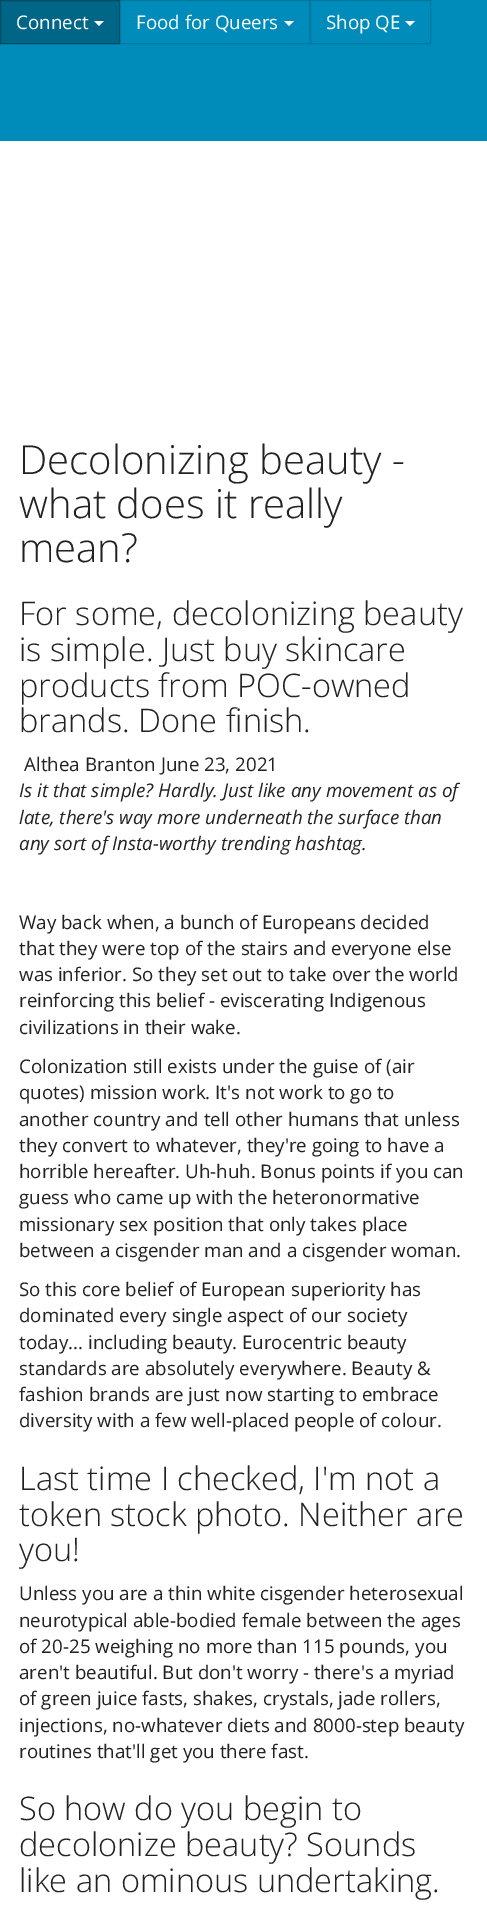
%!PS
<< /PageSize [487 1918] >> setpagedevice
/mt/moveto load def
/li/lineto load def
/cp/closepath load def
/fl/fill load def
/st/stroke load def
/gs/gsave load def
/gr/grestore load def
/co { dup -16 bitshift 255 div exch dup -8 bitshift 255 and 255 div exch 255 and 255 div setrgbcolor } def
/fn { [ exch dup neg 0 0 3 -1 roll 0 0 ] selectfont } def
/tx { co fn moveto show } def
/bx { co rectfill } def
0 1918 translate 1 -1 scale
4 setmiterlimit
0 0 487 1918 16#FFFFFF bx
0 0 487 141 16#008CBA bx
16#006687 co
.5 .5 mt 119.5 .5 li 119.5 43.5 li .5 43.5 li cp gs fl gr
16#004B63 co
st
16#FFFFFF co
94 21 mt 104 21 li 99 26 li cp fl
16#0079A1 co
120.5 .5 189 43 rectstroke
16#FFFFFF co
284 21 mt 294 21 li 289 26 li cp fl
16#0079A1 co
310.5 .5 120 43 rectstroke
16#FFFFFF co
405 21 mt 415 21 li 410 26 li cp fl
(Connect) 16 29 /OpenSans-Regular 18.75 16#FFFFFF tx
(Food for Queers) 136 29 /OpenSans-Regular 18.75 16#FFFFFF tx
(Shop QE) 326 29 /OpenSans-Regular 18.75 16#FFFFFF tx
(Decolonizing beauty -) 19 474 /OpenSans-Light 40 16#222222 tx
(what does it really) 19 518 /OpenSans-Light 40 16#222222 tx
(mean?) 19 562 /OpenSans-Light 40 16#222222 tx
(For some, decolonizing beauty) 19 625 /OpenSans-Light 32.5 16#222222 tx
(is simple. Just buy skincare) 19 661 /OpenSans-Light 32.5 16#222222 tx
(products from POC-owned) 19 697 /OpenSans-Light 32.5 16#222222 tx
(brands. Done finish.) 19 732 /OpenSans-Light 32.5 16#222222 tx
(Althea Branton June 23, 2021) 24 771 /OpenSans-Regular 18.75 16#222222 tx
(Is it that simple? Hardly. Just like any movement as of) 19 797 /OpenSans-Italic 18.75 16#222222 tx
(late, there's way more underneath the surface than) 19 824 /OpenSans-Italic 18.75 16#222222 tx
(any sort of Insta-worthy trending hashtag.) 19 850 /OpenSans-Italic 18.75 16#222222 tx
(Way back when, a bunch of Europeans decided) 19 929 /OpenSans-Regular 18.75 16#222222 tx
(that they were top of the stairs and everyone else) 19 955 /OpenSans-Regular 18.75 16#222222 tx
(was inferior. So they set out to take over the world) 19 981 /OpenSans-Regular 18.75 16#222222 tx
(reinforcing this belief - eviscerating Indigenous) 19 1007 /OpenSans-Regular 18.75 16#222222 tx
(civilizations in their wake.) 19 1034 /OpenSans-Regular 18.75 16#222222 tx
(Colonization still exists under the guise of \(air) 19 1073 /OpenSans-Regular 18.75 16#222222 tx
(quotes\) mission work. It's not work to go to) 19 1099 /OpenSans-Regular 18.75 16#222222 tx
(another country and tell other humans that unless) 19 1126 /OpenSans-Regular 18.75 16#222222 tx
(they convert to whatever, they're going to have a) 19 1152 /OpenSans-Regular 18.75 16#222222 tx
(horrible hereafter. Uh-huh. Bonus points if you can) 19 1178 /OpenSans-Regular 18.75 16#222222 tx
(guess who came up with the heteronormative) 19 1204 /OpenSans-Regular 18.75 16#222222 tx
(missionary sex position that only takes place) 19 1231 /OpenSans-Regular 18.75 16#222222 tx
(between a cisgender man and a cisgender woman.) 19 1257 /OpenSans-Regular 18.75 16#222222 tx
(So this core belief of European superiority has) 19 1296 /OpenSans-Regular 18.75 16#222222 tx
(dominated every single aspect of our society) 19 1322 /OpenSans-Regular 18.75 16#222222 tx
(today... including beauty. Eurocentric beauty) 19 1349 /OpenSans-Regular 18.75 16#222222 tx
(standards are absolutely everywhere. Beauty &) 19 1375 /OpenSans-Regular 18.75 16#222222 tx
(fashion brands are just now starting to embrace) 19 1401 /OpenSans-Regular 18.75 16#222222 tx
(diversity with a few well-placed people of colour.) 19 1427 /OpenSans-Regular 18.75 16#222222 tx
(Last time I checked, I'm not a) 19 1490 /OpenSans-Light 32.5 16#222222 tx
(token stock photo. Neither are) 19 1526 /OpenSans-Light 32.5 16#222222 tx
(you!) 19 1561 /OpenSans-Light 32.5 16#222222 tx
(Unless you are a thin white cisgender heterosexual) 19 1600 /OpenSans-Regular 18.75 16#222222 tx
(neurotypical able-bodied female between the ages) 19 1627 /OpenSans-Regular 18.75 16#222222 tx
(of 20-25 weighing no more than 115 pounds, you) 19 1653 /OpenSans-Regular 18.75 16#222222 tx
(aren't beautiful. But don't worry - there's a myriad) 19 1679 /OpenSans-Regular 18.75 16#222222 tx
(of green juice fasts, shakes, crystals, jade rollers,) 19 1705 /OpenSans-Regular 18.75 16#222222 tx
(injections, no-whatever diets and 8000-step beauty) 19 1732 /OpenSans-Regular 18.75 16#222222 tx
(routines that'll get you there fast.) 19 1758 /OpenSans-Regular 18.75 16#222222 tx
(So how do you begin to) 19 1820 /OpenSans-Light 32.5 16#222222 tx
(decolonize beauty? Sounds) 19 1856 /OpenSans-Light 32.5 16#222222 tx
(like an ominous undertaking.) 19 1892 /OpenSans-Light 32.5 16#222222 tx
showpage
